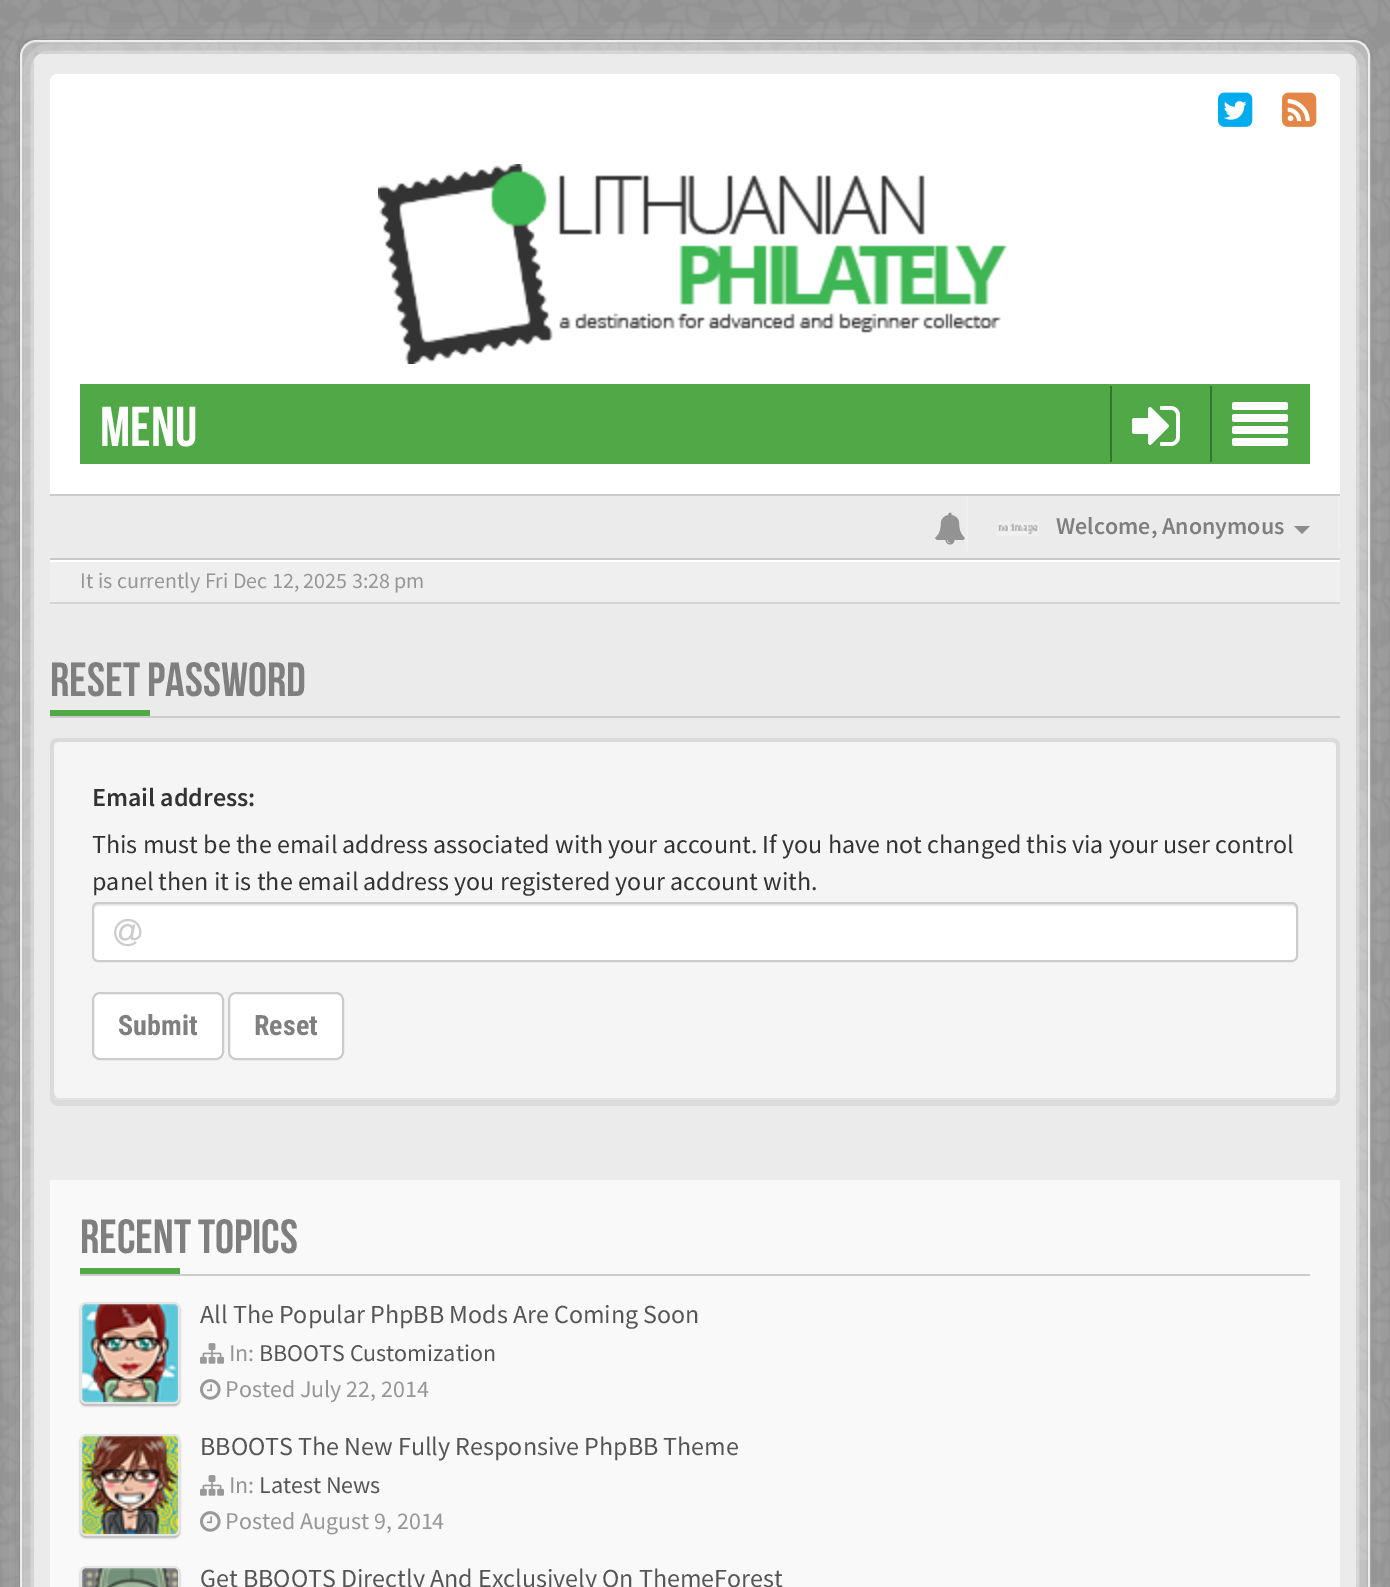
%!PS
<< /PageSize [1390 1587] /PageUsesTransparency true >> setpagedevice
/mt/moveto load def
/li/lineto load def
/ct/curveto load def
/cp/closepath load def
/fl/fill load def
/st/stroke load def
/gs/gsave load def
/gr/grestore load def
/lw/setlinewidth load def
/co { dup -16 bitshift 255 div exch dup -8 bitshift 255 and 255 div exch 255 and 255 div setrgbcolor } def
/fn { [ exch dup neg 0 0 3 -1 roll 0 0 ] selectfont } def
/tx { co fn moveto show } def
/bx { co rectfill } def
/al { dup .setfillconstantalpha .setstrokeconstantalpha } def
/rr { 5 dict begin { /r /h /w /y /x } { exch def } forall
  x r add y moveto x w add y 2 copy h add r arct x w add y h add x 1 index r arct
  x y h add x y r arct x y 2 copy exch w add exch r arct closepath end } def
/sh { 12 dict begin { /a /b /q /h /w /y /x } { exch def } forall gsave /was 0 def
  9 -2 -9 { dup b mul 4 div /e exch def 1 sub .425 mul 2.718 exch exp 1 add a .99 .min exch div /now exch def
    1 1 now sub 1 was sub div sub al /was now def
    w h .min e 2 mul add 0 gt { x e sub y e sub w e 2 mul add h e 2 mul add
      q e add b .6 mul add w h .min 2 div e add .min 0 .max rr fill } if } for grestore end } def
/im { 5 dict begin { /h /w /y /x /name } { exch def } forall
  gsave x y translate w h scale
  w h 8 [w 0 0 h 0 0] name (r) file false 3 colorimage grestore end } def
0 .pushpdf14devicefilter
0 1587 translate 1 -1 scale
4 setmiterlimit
0 0 1390 1587 16#999999 bx
(media/1.raw) 0 0 1390 1587 im
gs
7 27 mt 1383 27 li 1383 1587 li 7 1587 li cp 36 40 mt 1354 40 li 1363 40 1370 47 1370 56 ct 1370 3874 li 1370 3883 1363 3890 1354 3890 ct 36 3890 li 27 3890 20 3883 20 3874 ct 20 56 li 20 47 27 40 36 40 ct cp eoclip newpath
16#323232 co
20 40 1350 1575 16 4 .5 sh
gr
0.2 al
16#FFFFFF co
20 40 1350 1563 16 rr fl
0.75 al
2 lw
21 41 1348 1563 15 rr st
1 al
34 54 1322 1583 8 14 1 sh
16#EBEBEB co
34 54 1322 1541 8 rr fl
16#FFFFFF co
58 74 mt 1332 74 li 1336.5 74 1340 77.5 1340 82 ct 1340 494 li 50 494 li 50 82 li 50 77.5 53.5 74 58 74 ct cp fl
(media/2.raw) 1218 92 35 35 im
(media/3.raw) 1282 92 35 35 im
(media/4.raw) 378 164 629 200 im
80 384 1230 80 16#50A846 bx
1110 386 2 76 16#367230 bx
(media/5.raw) 1132 406 48 40 im
1210 386 2 76 16#367230 bx
(media/6.raw) 1232 402 56 44 im
50 494 1290 2 16#CCCCCC bx
50 560 1290 2 16#FFFFFF bx
50 558 1290 2 16#C7C7C7 bx
966 496 2 56 16#F0F0F0 bx
(media/7.raw) 935 512 30 33 im
1338 496 2 54 16#F0F0F0 bx
(media/8.raw) 997 522 42 14 im
16#8C8C8C co
1294 526 mt 1310 526 li 1302 534 li cp fl
50 602 1290 2 16#D4D4D4 bx
50 562 1290 40 16#EFEFEF bx
50 716 1290 2 16#CCCCCC bx
50 710 100 6 16#50A846 bx
16#DBDBDB co
50 1092 mt 50 1098 li 50 1102 54 1106 58 1106 ct 1332 1106 li 1336 1106 1340 1102 1340 1098 ct 1340 1092 li 1340 1096 1336 1100 1332 1100 ct 58 1100 li 54 1100 50 1096 50 1092 ct cp fl
16#F5F5F5 co
58 742 mt 1332 742 li 1334 742 1336 744 1336 746 ct 1336 1092 li 1336 1095 1334 1098 1332 1098 ct 58 1098 li 56 1098 54 1095 54 1092 ct 54 746 li 54 744 56 742 58 742 ct cp fl
16#DBDBDB co
58 738 mt 56 738 54 739 52 740 ct 55 743 li 58 742 li 1332 742 li 1335 743 li 1338 740 li 1336 739 1334 738 1332 738 ct cp fl
1340 1092 mt 1340 746 li 1340 744 1339 742 1338 740 ct 1335 743 li 1336 744 1336 745 1336 746 ct 1336 1092 li 1336 1094 1335 1096 1334 1097 ct 1337 1098 li 1339 1097 1340 1094 1340 1092 ct cp fl
16#E3E3E3 co
58 1100 mt 1332 1100 li 1334 1100 1335 1099 1337 1098 ct 1334 1097 li 1332 1098 li 58 1098 li 56 1097 li 53 1098 li 55 1099 56 1100 58 1100 ct cp fl
16#DBDBDB co
50 746 mt 50 1092 li 50 1094 51 1097 53 1098 ct 56 1097 li 55 1096 54 1094 54 1092 ct 54 746 li 54 745 54 744 55 743 ct 52 740 li 51 742 50 744 50 746 ct cp fl
16#FFFFFF co
92 902 1206 60 6 rr fl
16#ECECEC co
98 906 mt 1292 906 li 1294 906 1296 908 1296 910 ct 1296 908 li 1296 906 1294 904 1292 904 ct 98 904 li 96 904 94 906 94 908 ct 94 910 li 94 908 96 906 98 906 ct cp fl
16#CCCCCC co
93 903 1204 58 5 rr st
(media/9.raw) 114 918 28 29 im
16#FFFFFF co
93 993 130 66 7 rr gs fl gr
16#CCCCCC co
st
16#FFFFFF co
229 993 114 66 7 rr gs fl gr
16#CCCCCC co
st
50 1180 1290 407 16#F9F9F9 bx
80 1274 1230 2 16#CCCCCC bx
80 1268 100 6 16#50A846 bx
gs
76 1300 mt 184 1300 li 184 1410 li 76 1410 li cp 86 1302 mt 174 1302 li 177.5 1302 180 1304.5 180 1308 ct 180 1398 li 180 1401.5 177.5 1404 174 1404 ct 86 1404 li 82.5 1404 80 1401.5 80 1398 ct 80 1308 li 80 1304.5 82.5 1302 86 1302 ct cp eoclip newpath
16#000000 co
80 1304 100 102 6 1 .3 sh
gr
(media/10.raw) 82 1304 96 98 im
16#E4E4E4 co
81 1303 98 100 5 rr st
(media/11.raw) 200 1343 24 21 im
(media/12.raw) 200 1379 21 21 im
gs
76 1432 mt 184 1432 li 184 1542 li 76 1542 li cp 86 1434 mt 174 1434 li 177.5 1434 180 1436.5 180 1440 ct 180 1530 li 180 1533.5 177.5 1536 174 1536 ct 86 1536 li 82.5 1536 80 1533.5 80 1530 ct 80 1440 li 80 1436.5 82.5 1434 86 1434 ct cp eoclip newpath
16#000000 co
80 1436 100 102 6 1 .3 sh
gr
(media/13.raw) 82 1436 96 98 im
81 1435 98 100 5 rr st
(media/11.raw) 200 1475 24 21 im
(media/12.raw) 200 1511 21 21 im
16#000000 co
80 1568 100 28 6 1 .3 sh
(media/14.raw) 82 1568 98 19 im
16#E4E4E4 co
81 1567 98 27 5 rr st
(MENU) 100 446 /BebasNeue-Regular 56 16#FFFFFF tx
(Welcome, Anonymous) 1056 534 /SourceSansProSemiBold-SemiBold 24 16#7F7F7F tx
(It is currently Fri Dec 12, 2025 3:28 pm) 80 588 /SourceSansPro-Regular 22 16#979595 tx
(RESET PASSWORD) 50 696 /BebasNeue-Regular 48 16#7F7F7F tx
(Email address:) 92 806 /SourceSansProSemiBold-SemiBold 26 16#333333 tx
(This must be the email address associated with your account. If you have not changed this via your user control) 92 853 /SourceSansPro-Regular 26 16#333333 tx
(panel then it is the email address you registered your account with.) 92 890 /SourceSansPro-Regular 26 16#333333 tx
(Submit) 118 1035 /RobotoCondensed-Bold 28 16#7F7F7F tx
(Reset) 254 1035 /RobotoCondensed-Bold 28 16#7F7F7F tx
(RECENT TOPICS) 80 1253 /BebasNeue-Regular 48 16#7F7F7F tx
(All The Popular PhpBB Mods Are Coming Soon) 200 1323 /SourceSansPro-Regular 26 16#555555 tx
(In:) 229 1361 /SourceSansPro-Regular 24 16#979595 tx
(BBOOTS Customization) 259 1361 /SourceSansPro-Regular 24 16#555555 tx
(Posted July 22, 2014) 225 1397 /SourceSansPro-Regular 24 16#979595 tx
(BBOOTS The New Fully Responsive PhpBB Theme) 200 1455 /SourceSansPro-Regular 26 16#555555 tx
(In:) 229 1493 /SourceSansPro-Regular 24 16#979595 tx
(Latest News) 259 1493 /SourceSansPro-Regular 24 16#555555 tx
(Posted August 9, 2014) 225 1529 /SourceSansPro-Regular 24 16#979595 tx
(Get BBOOTS Directly And Exclusively On ThemeForest) 200 1587 /SourceSansPro-Regular 26 16#555555 tx
.poppdf14devicefilter showpage
